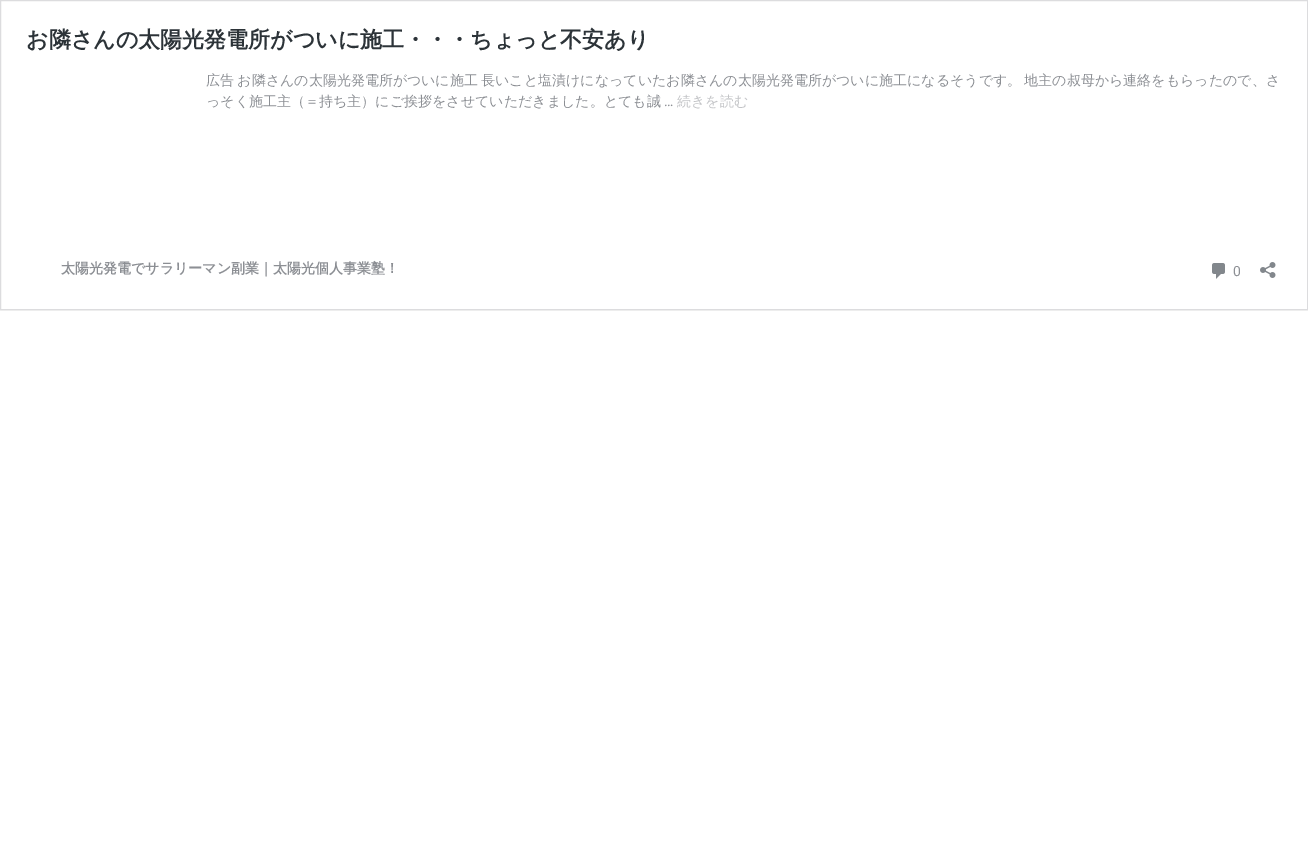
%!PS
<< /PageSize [1308 865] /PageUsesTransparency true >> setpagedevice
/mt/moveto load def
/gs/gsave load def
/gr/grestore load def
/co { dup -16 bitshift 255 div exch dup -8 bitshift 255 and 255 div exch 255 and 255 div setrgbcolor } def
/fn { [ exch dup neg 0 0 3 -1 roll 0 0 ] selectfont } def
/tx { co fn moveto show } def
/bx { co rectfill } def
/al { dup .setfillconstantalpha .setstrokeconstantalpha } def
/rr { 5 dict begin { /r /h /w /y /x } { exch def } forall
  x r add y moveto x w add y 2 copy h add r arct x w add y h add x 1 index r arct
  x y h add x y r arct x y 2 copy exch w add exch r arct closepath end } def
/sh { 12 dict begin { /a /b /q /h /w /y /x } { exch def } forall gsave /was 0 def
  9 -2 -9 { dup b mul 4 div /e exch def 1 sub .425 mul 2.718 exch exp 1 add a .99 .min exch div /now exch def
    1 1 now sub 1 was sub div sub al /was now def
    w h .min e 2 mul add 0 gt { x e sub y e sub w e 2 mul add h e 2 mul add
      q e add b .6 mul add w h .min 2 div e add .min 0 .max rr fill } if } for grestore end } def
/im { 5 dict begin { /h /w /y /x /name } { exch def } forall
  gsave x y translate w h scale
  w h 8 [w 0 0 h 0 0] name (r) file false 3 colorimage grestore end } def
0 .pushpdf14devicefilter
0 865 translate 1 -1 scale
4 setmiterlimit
0 0 1308 865 16#FFFFFF bx
gs
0 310 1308 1 rectclip
16#000000 co
0 1 1308 310 0 .5 .05 sh
gr
16#DCDCDE co
.5 .5 1307 309 rectstroke
(media/1.raw) 1212 263 13 16 im
(media/2.raw) 1260 262 16 16 im
(お隣さんの太陽光発電所がついに施工・・・ちょっと不安あり) 26 47 /WenQuanYiZenHei-Bold 22 16#2C3338 tx
/WenQuanYiZenHei-Medium 14 fn
16#8C8F94 co
206 85 mt -1 0 32 (広告 お隣さんの太陽光発電所がついに施工 長いこと塩漬けになっていたお隣さんの太陽光発電所がついに施工になるそうです。 地主の叔母から連絡をもらったので、さ) widthshow
(っそく施工主（＝持ち主）にご挨拶をさせていただきました。とても誠) 206 106 /WenQuanYiZenHei-Medium 14 16#8C8F94 tx
(…) 664 106 /Roboto-Regular 14 16#8C8F94 tx
(続きを読む) 677 106 /WenQuanYiZenHei-Medium 14 16#C3C4C7 tx
(太陽光発電でサラリーマン副業｜太陽光個人事業塾！) 61 273 /WenQuanYiZenHei-Bold 14 16#8C8F94 tx
(0) 1233 276 /Roboto-Regular 14 16#8C8F94 tx
.poppdf14devicefilter showpage
